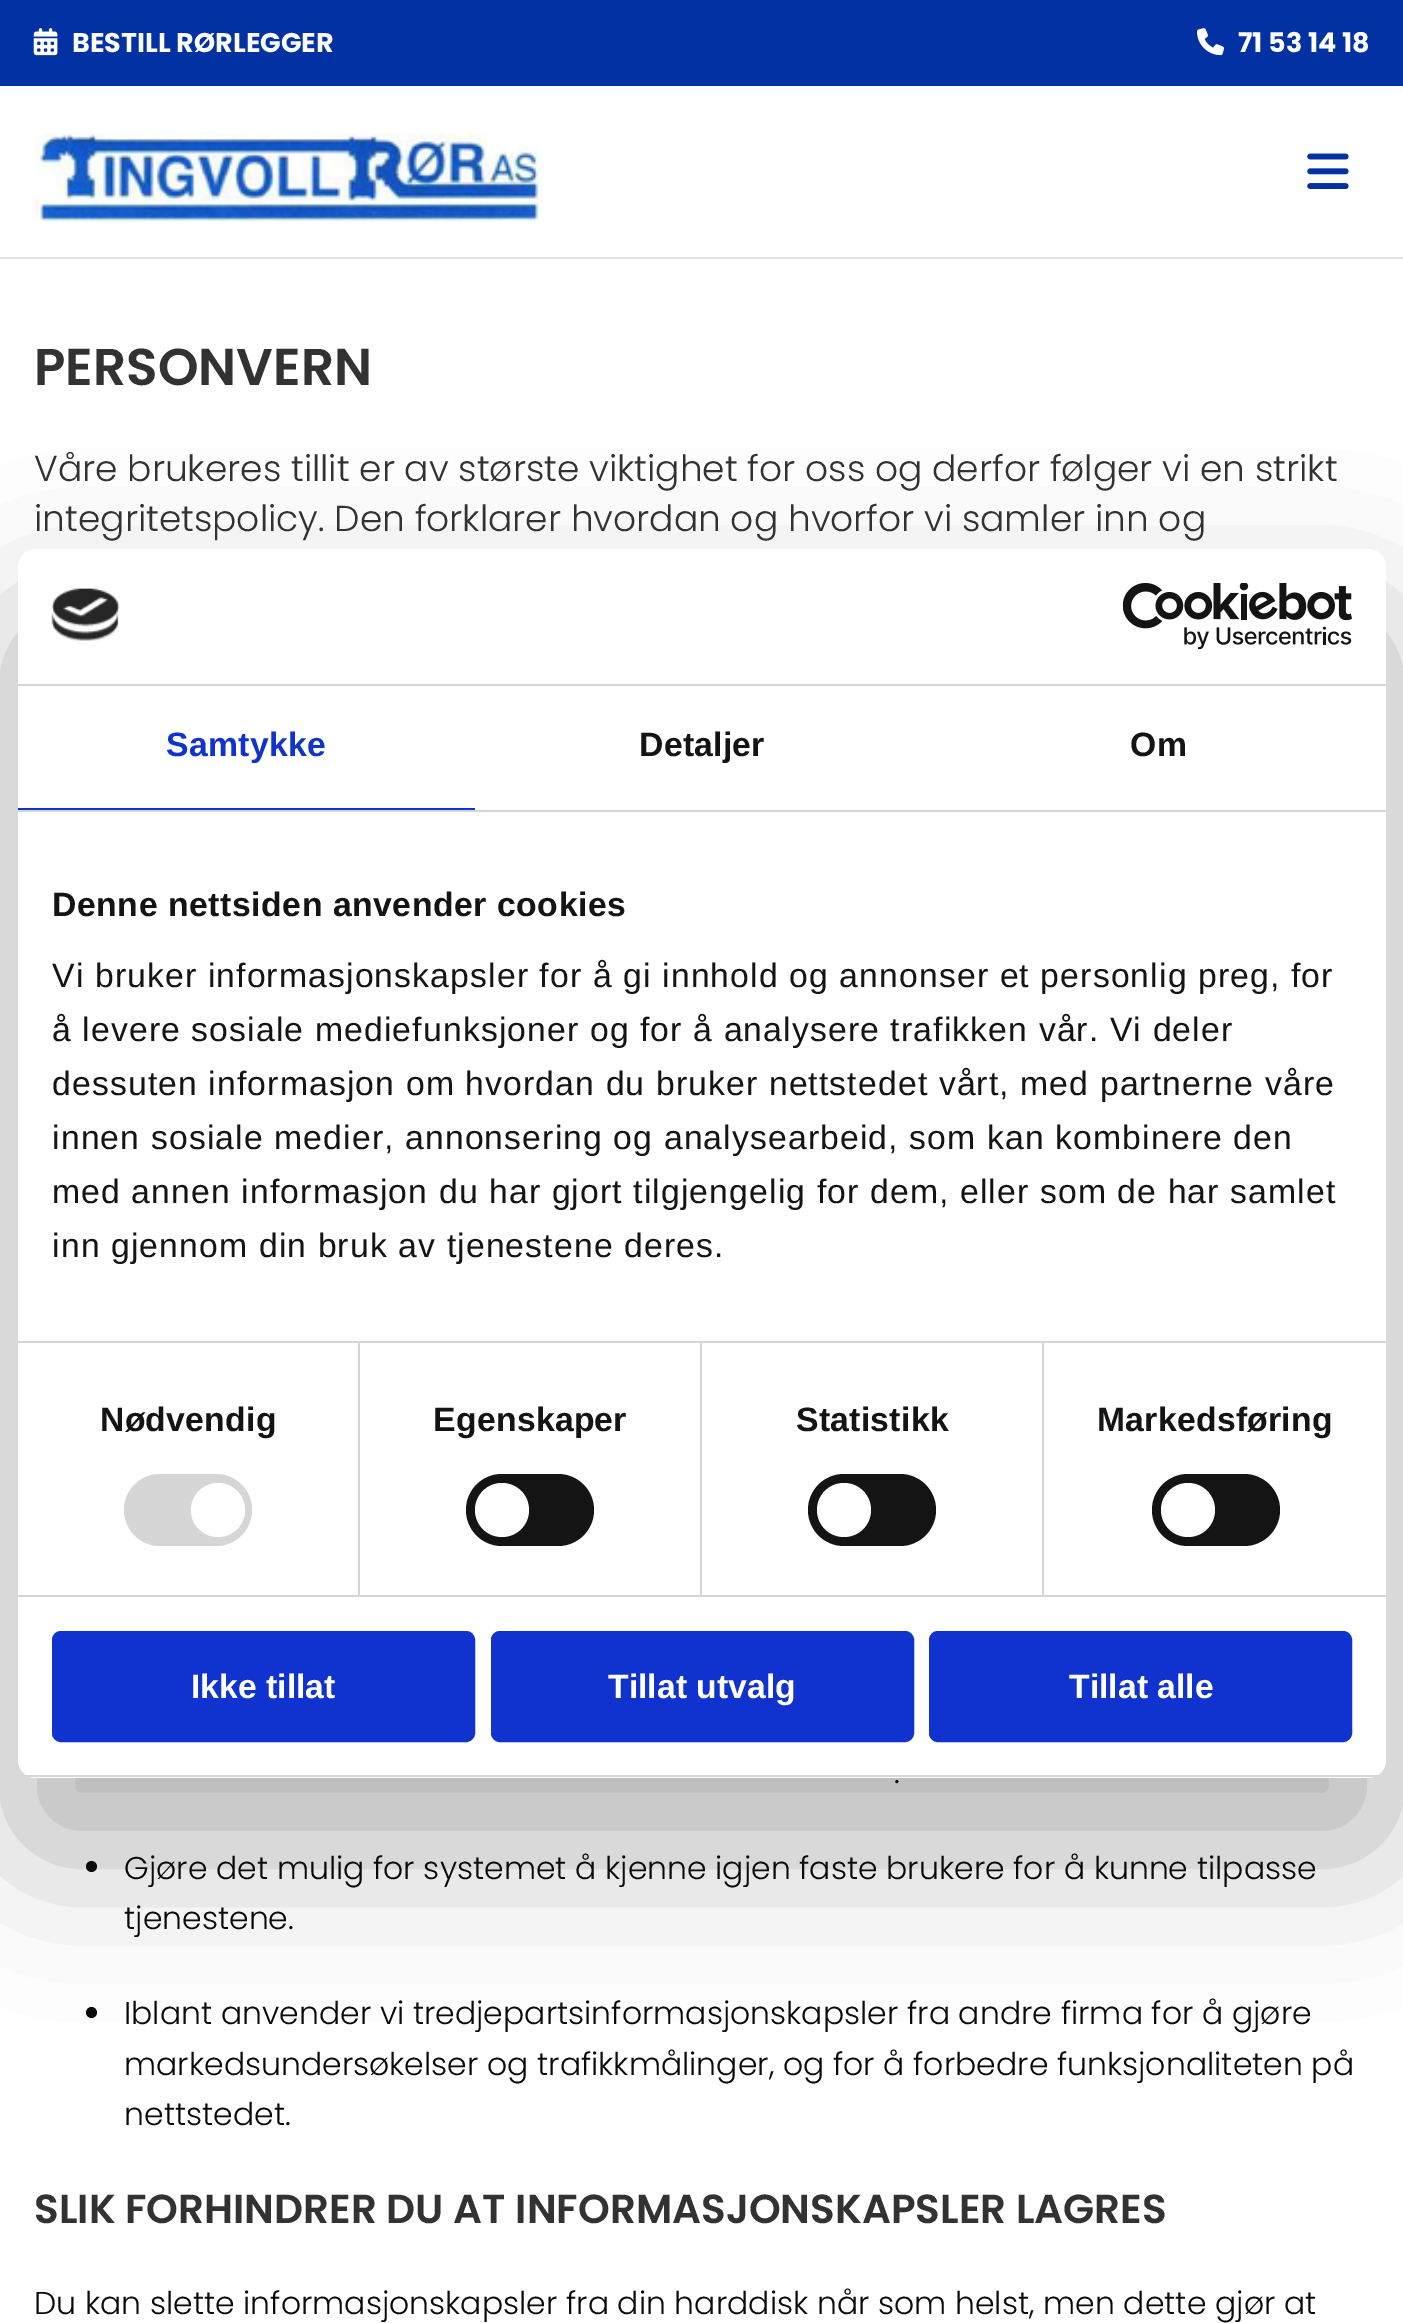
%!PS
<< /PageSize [1403 2323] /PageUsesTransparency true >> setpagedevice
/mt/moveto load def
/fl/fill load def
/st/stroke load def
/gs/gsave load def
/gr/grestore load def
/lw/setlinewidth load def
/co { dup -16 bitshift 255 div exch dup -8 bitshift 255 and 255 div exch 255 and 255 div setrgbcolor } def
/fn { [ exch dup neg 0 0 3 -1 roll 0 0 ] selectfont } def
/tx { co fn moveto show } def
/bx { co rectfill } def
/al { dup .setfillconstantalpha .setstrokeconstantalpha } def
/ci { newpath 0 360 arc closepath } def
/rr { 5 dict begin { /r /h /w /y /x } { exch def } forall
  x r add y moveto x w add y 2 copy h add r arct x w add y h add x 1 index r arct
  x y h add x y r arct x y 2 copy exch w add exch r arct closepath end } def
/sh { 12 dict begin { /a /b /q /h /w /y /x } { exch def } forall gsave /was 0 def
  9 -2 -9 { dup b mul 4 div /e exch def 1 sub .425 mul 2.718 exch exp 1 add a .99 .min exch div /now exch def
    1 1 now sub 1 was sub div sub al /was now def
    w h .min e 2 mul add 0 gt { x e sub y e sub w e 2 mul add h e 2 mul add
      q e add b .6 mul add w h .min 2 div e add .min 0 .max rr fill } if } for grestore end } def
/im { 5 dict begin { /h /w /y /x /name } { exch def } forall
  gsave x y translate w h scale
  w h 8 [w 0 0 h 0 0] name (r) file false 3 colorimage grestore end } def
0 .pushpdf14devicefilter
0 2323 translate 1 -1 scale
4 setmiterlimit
0 0 1403 2323 16#0231A3 bx
(media/1.raw) 33 28 25 28 im
(media/2.raw) 1197 28 27 28 im
0 86 1403 171 16#FFFFFF bx
0 257 1403 2 16#E3E3E3 bx
(media/3.raw) 34 132 509 90 im
(media/4.raw) 1307 153 42 36 im
0 259 1403 2064 16#FFFFFF bx
16#0A0A0A co
91.5 1866.5 5.5 ci fl
91.5 2012.5 5.5 ci fl
16#000000 co
18 621 1368 1229 18 76.5 .3 sh
16#FFFFFF co
18 549 1368 1229 18 rr fl
18 684 1368 2 16#D6D6D6 bx
(media/5.raw) 51 588 69 53 im
(media/6.raw) 1123 583 229 67 im
18 810 1368 2 16#D6D6D6 bx
18 808 457 2 16#1032CF bx
18 1341 1368 2 16#D6D6D6 bx
18 1595 1368 2 16#D6D6D6 bx
358 1343 2 252 16#D6D6D6 bx
124 1474 128 72 36 rr fl
16#FFFFFF co
218 1510 27 ci fl
700 1343 2 252 16#D6D6D6 bx
16#141414 co
466 1474 128 72 36 rr fl
16#FFFFFF co
502 1510 27 ci fl
1042 1343 2 252 16#D6D6D6 bx
16#141414 co
808 1474 128 72 36 rr fl
16#FFFFFF co
844 1510 27 ci fl
16#141414 co
1152 1474 128 72 36 rr fl
16#FFFFFF co
1188 1510 27 ci fl
gs
18 549 1368 1229 18 rr clip newpath
18 1775 1368 2 16#D6D6D6 bx
gr
16#1032CF co
54.5 1633.5 418 106 6.5 rr gs fl gr
5 lw
st
493.5 1633.5 418 106 6.5 rr gs fl gr
st
931.5 1633.5 418 106 6.5 rr gs fl gr
st
(BESTILL RØRLEGGER) 72 52 /Poppins-Bold 27 16#FFFFFF tx
(71 53 14 18) 1238 52 /Poppins-Bold 27 16#FFFFFF tx
(PERSONVERN) 34 385 /Poppins-SemiBold 51.75 16#333232 tx
(Våre brukeres tillit er av største viktighet for oss og derfor følger vi en strikt) 34 481 /Poppins-Light 36 16#333232 tx
(integritetspolicy. Den forklarer hvordan og hvorfor vi samler inn og) 34 531 /Poppins-Light 36 16#333232 tx
(.) 894 1783 /Poppins-Light 31.5 16#0A0A0A tx
(Gjøre det mulig for systemet å kjenne igjen faste brukere for å kunne tilpasse) 124 1879 /Poppins-Light 31.5 16#0A0A0A tx
(tjenestene.) 124 1929 /Poppins-Light 31.5 16#0A0A0A tx
(Iblant anvender vi tredjepartsinformasjonskapsler fra andre firma for å gjøre) 124 2024 /Poppins-Light 31.5 16#0A0A0A tx
(markedsundersøkelser og trafikkmålinger, og for å forbedre funksjonaliteten på) 124 2075 /Poppins-Light 31.5 16#0A0A0A tx
(nettstedet.) 124 2125 /Poppins-Light 31.5 16#0A0A0A tx
(SLIK FORHINDRER DU AT INFORMASJONSKAPSLER LAGRES) 34 2223 /Poppins-SemiBold 40.5 16#333232 tx
(Du kan slette informasjonskapsler fra din harddisk når som helst, men dette gjør at) 34 2314 /Poppins-Light 31.5 16#0A0A0A tx
/LiberationSans-Bold 33.75 fn
16#1032CF co
166 756 mt .25 0 (Samtykke) ashow
16#141414 co
639 756 mt .25 0 (Detaljer) ashow
1130 756 mt .25 0 (Om) ashow
52 916 mt .55 0 (Denne nettsiden anvender cookies) ashow
/LiberationSans-Regular 33.75 fn
52 987 mt 1.12 0 (Vi bruker informasjonskapsler for å gi innhold og annonser et personlig preg, for) ashow
52 1041 mt 1.12 0 (å levere sosiale mediefunksjoner og for å analysere trafikken vår. Vi deler) ashow
52 1095 mt 1.12 0 (dessuten informasjon om hvordan du bruker nettstedet vårt, med partnerne våre) ashow
52 1149 mt 1.12 0 (innen sosiale medier, annonsering og analysearbeid, som kan kombinere den) ashow
52 1203 mt 1.12 0 (med annen informasjon du har gjort tilgjengelig for dem, eller som de har samlet) ashow
52 1257 mt 1.12 0 (inn gjennom din bruk av tjenestene deres.) ashow
/LiberationSans-Bold 33.75 fn
100 1431 mt .25 0 (Nødvendig) ashow
433 1431 mt .25 0 (Egenskaper) ashow
796 1431 mt .25 0 (Statistikk) ashow
1097 1431 mt .25 0 (Markedsføring) ashow
(Ikke tillat) 191 1698 /LiberationSans-Bold 33.75 16#FFFFFF tx
(Tillat utvalg) 608 1698 /LiberationSans-Bold 33.75 16#FFFFFF tx
(Tillat alle) 1069 1698 /LiberationSans-Bold 33.75 16#FFFFFF tx
.poppdf14devicefilter showpage
